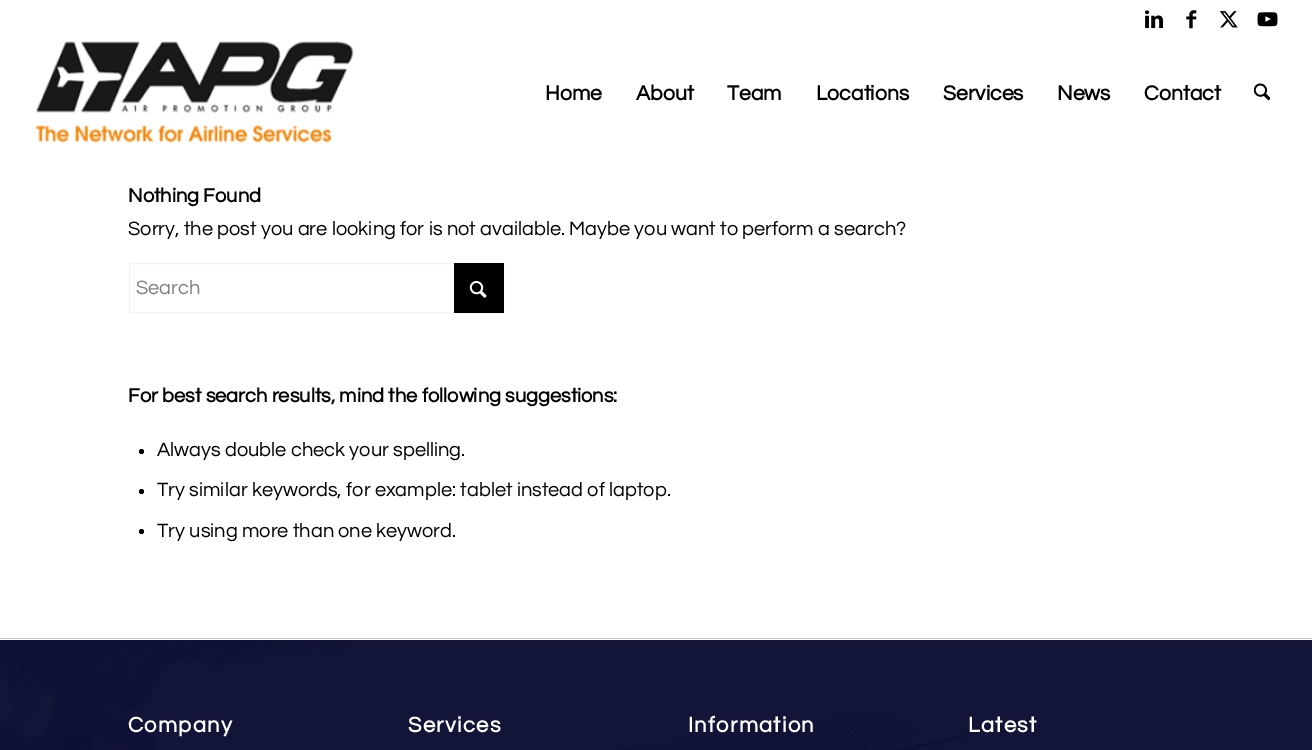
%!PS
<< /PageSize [1312 750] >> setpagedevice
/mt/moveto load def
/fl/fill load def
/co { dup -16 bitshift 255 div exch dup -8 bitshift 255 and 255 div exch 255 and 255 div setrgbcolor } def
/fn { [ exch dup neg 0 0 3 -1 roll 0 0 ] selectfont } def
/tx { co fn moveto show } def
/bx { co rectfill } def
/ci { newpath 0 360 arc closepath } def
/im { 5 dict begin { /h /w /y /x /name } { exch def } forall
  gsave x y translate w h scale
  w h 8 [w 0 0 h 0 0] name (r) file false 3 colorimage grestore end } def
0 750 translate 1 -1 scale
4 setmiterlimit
0 0 1312 750 16#FFFFFF bx
(media/1.raw) 1145 10 18 19 im
(media/2.raw) 1186 10 11 19 im
(media/3.raw) 1219 11 19 17 im
(media/4.raw) 1257 12 21 15 im
(media/5.raw) 35 41 319 103 im
(media/6.raw) 1254 83 16 18 im
16#F2F2F2 co
129.5 263.5 374 49 rectstroke
454 263 50 50 16#000000 bx
(media/7.raw) 469 281 18 17 im
141.5 451.5 2.5 ci fl
141.5 491.5 2.5 ci fl
141.5 531.5 2.5 ci fl
(media/8.raw) 0 638 1312 112 im
0 639 1312 1 16#FFFFFF bx
(Home) 545 100 /Questrial-Bold 21.25 16#000000 tx
(About) 636 100 /Questrial-Bold 21.25 16#000000 tx
(Team) 727 100 /Questrial-Bold 21.25 16#000000 tx
(Locations) 816 100 /Questrial-Bold 21.25 16#000000 tx
(Services) 943 100 /Questrial-Bold 21.25 16#000000 tx
(News) 1057 100 /Questrial-Bold 21.25 16#000000 tx
(Contact) 1144 100 /Questrial-Bold 21.25 16#000000 tx
(Nothing Found) 128 202 /Questrial-Bold 20 16#000000 tx
(Sorry, the post you are looking for is not available. Maybe you want to perform a search?) 128 235 /Questrial-Regular 20 16#000000 tx
(Search) 136 294 /Questrial-Regular 20 16#808080 tx
(For best search results, mind the following suggestions:) 128 402 /Questrial-Bold 20 16#000000 tx
(Always double check your spelling.) 157 456 /Questrial-Regular 20 16#000000 tx
(Try similar keywords, for example: tablet instead of laptop.) 157 496 /Questrial-Regular 20 16#000000 tx
(Try using more than one keyword.) 157 537 /Questrial-Regular 20 16#000000 tx
/Questrial-Bold 22 fn
16#FFFFFF co
128 732 mt 1.25 0 (Company) ashow
408 732 mt 1.25 0 (Services) ashow
688 732 mt 1.25 0 (Information) ashow
968 732 mt 1.25 0 (Latest) ashow
showpage
